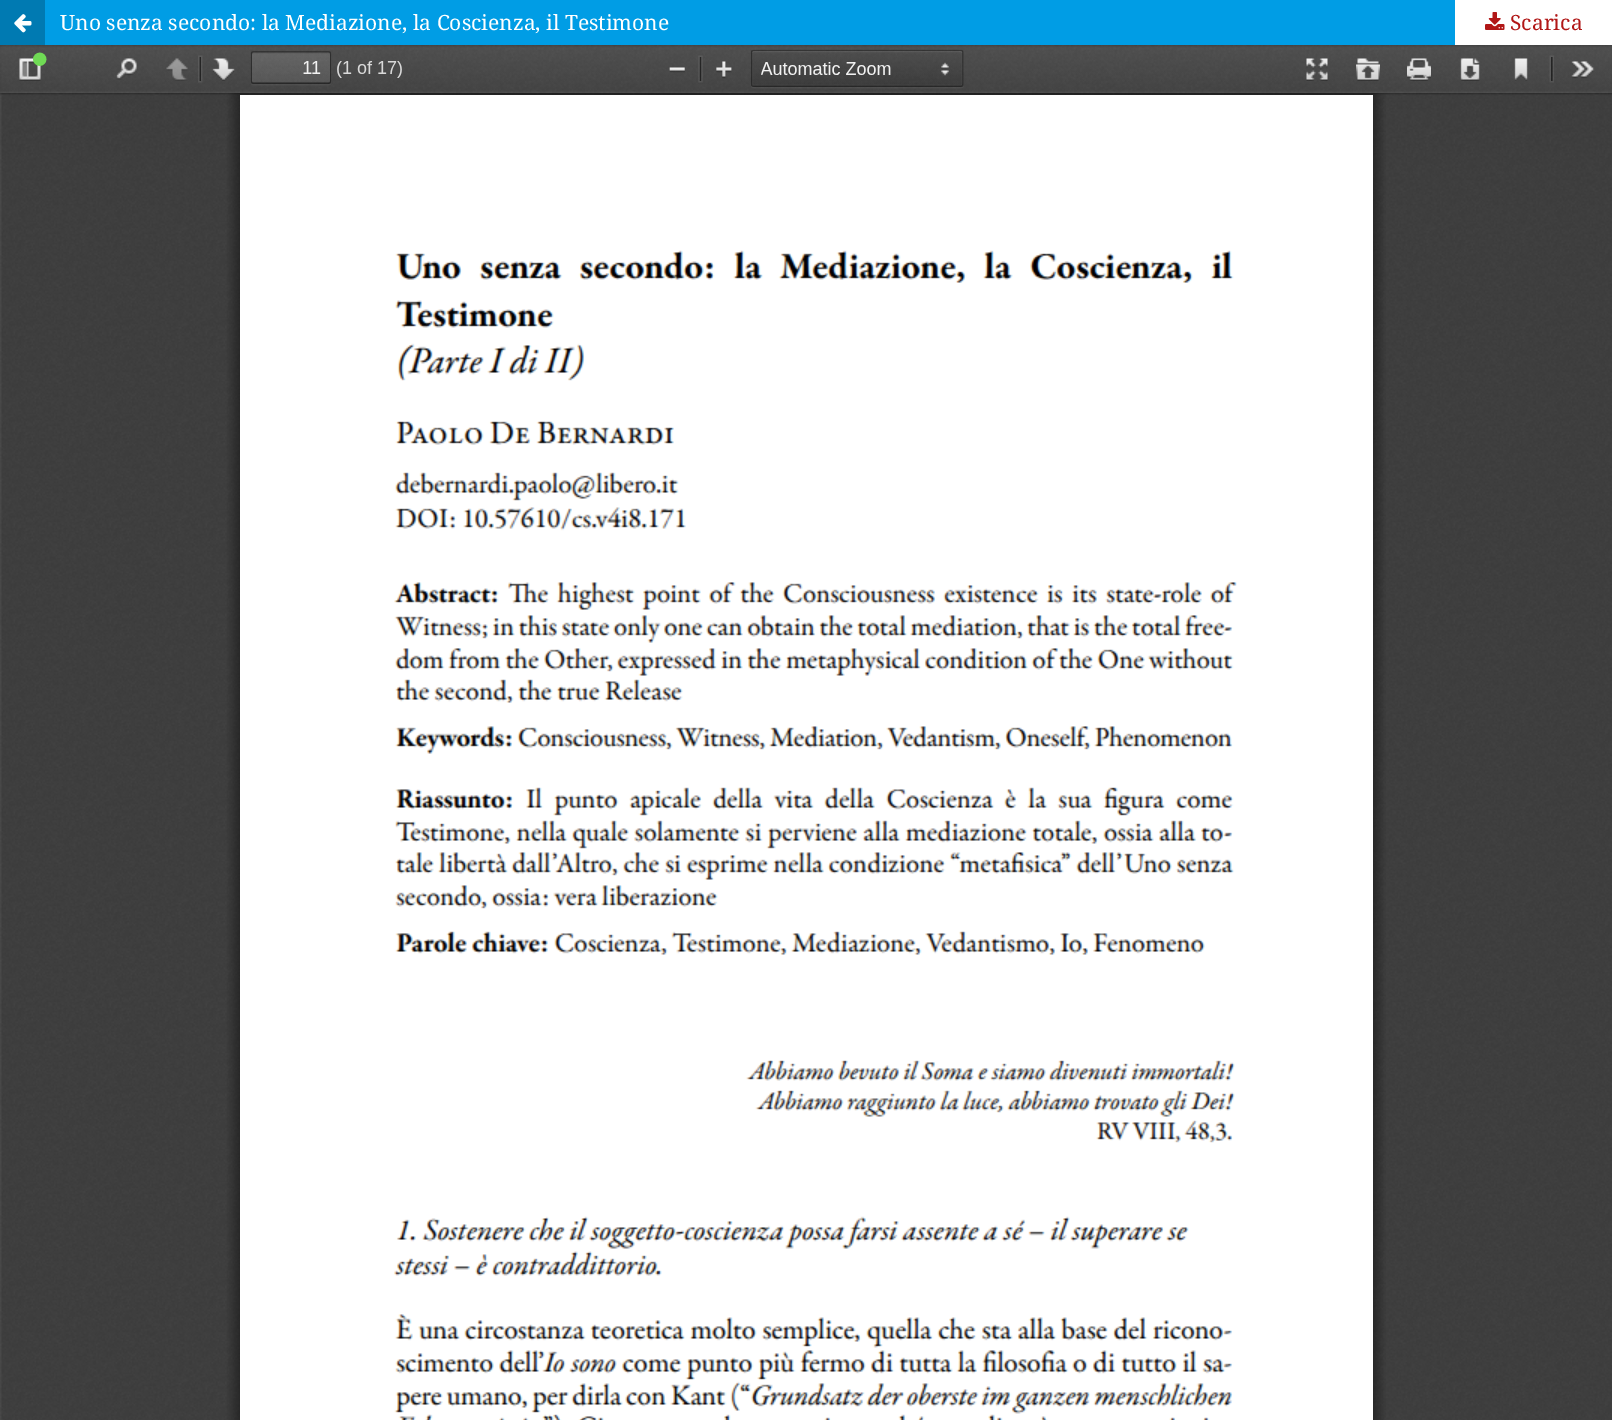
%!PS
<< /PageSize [1612 1420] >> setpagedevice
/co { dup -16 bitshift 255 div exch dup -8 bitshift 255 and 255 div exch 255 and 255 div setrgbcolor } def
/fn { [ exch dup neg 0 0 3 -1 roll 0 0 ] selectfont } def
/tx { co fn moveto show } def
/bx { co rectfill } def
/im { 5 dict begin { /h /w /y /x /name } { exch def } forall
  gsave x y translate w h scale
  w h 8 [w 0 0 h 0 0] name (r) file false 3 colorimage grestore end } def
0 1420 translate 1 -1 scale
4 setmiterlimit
0 0 1612 1420 16#FFFFFF bx
45 0 1410 45 16#009DE5 bx
0 0 45 45 16#007AB2 bx
(media/1.raw) 14 14 18 19 im
(media/2.raw) 1485 12 20 18 im
(media/3.raw) 0 45 1612 1375 im
(Uno senza secondo: la Mediazione, la Coscienza, il Testimone) 60 30 /NotoSerif-Regular 21 16#FFFFFF tx
(Scarica) 1510 30 /NotoSerif-Regular 21 16#B11717 tx
showpage
